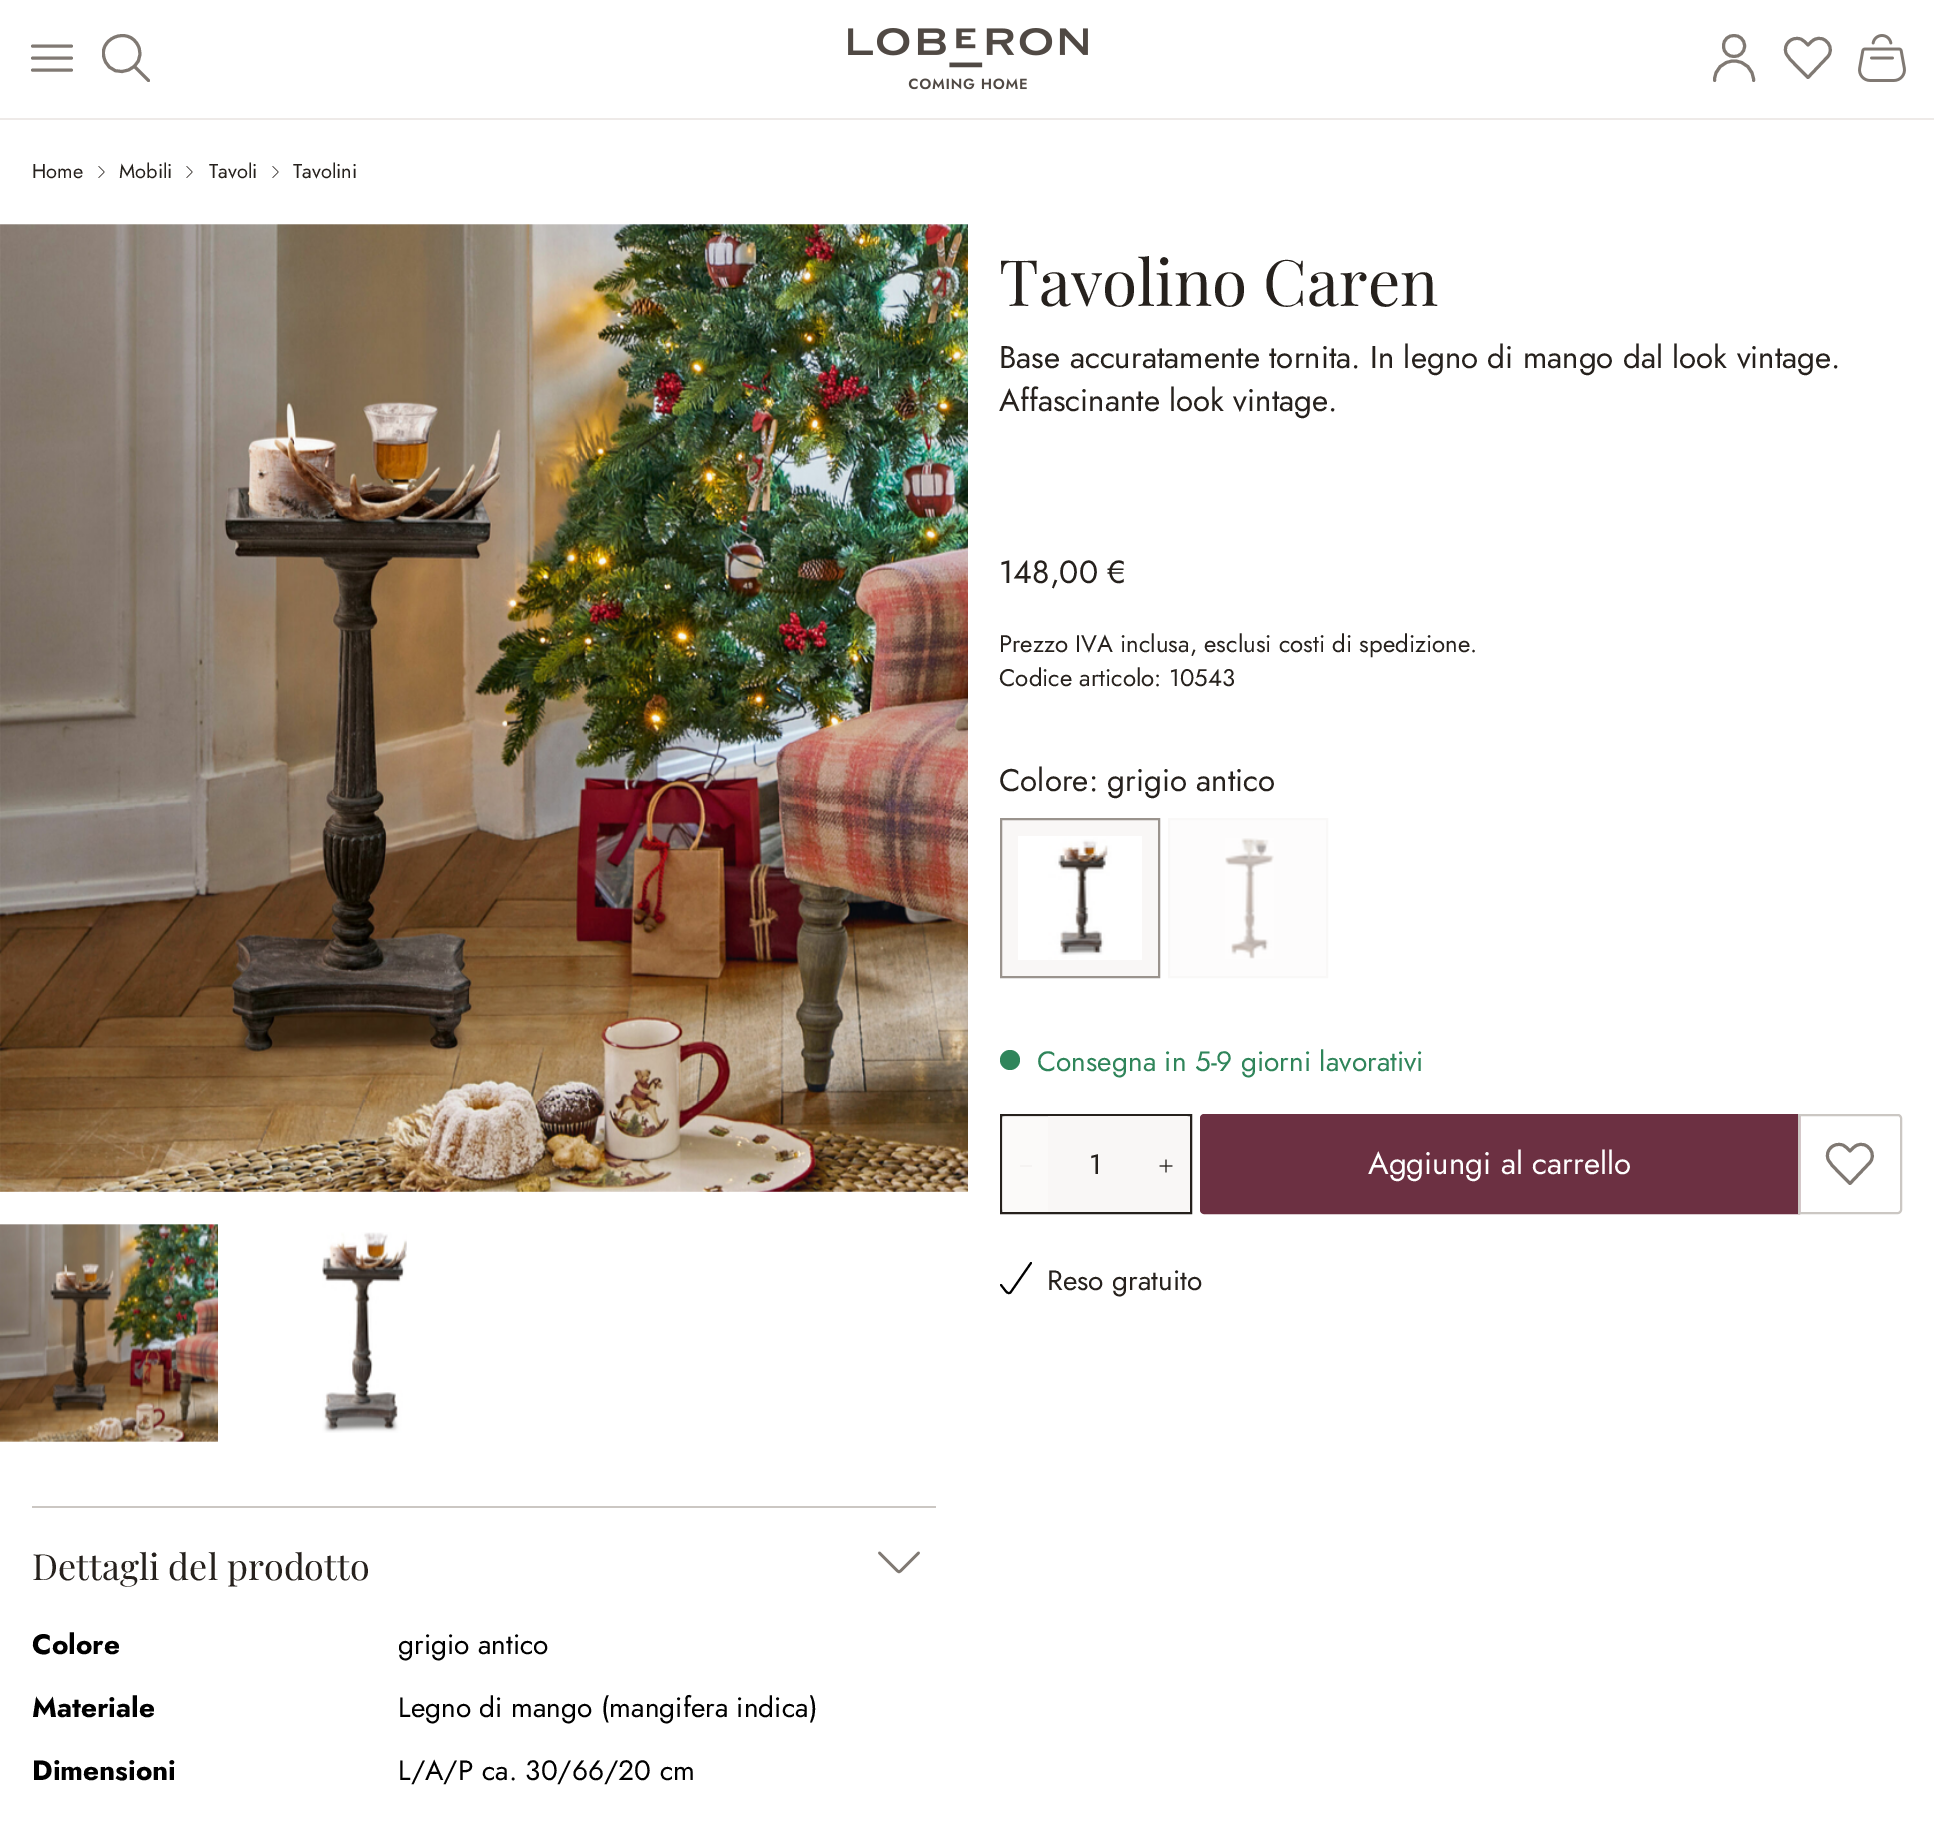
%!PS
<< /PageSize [1934 1823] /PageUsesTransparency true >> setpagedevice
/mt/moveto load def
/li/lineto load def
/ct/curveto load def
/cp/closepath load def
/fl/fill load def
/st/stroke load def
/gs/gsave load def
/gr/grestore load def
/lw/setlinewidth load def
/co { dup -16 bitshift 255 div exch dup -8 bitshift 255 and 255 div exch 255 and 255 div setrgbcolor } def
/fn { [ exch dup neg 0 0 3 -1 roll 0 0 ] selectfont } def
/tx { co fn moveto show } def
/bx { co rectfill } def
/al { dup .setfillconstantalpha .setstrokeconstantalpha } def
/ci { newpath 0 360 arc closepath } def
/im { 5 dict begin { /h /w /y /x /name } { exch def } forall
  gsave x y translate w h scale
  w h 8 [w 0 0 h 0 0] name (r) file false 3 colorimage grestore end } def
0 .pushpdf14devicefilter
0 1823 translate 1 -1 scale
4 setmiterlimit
0 0 1934 1823 16#FFFFFF bx
0 118 1934 2 16#EEEAE8 bx
16#807973 co
3 lw
1 setlinecap
1 setlinejoin
32.5 70 mt 71.5 70 li 32.5 58 mt 71.5 58 li 32.5 46 mt 71.5 46 li st
gs
102 34 48 48 rectclip
105 60.5 mt 114 82.5 147.5 68.5 138.5 46.5 ct 129 24.5 95.5 39 105 60.5 ct cp st
gr
134.5 66.5 mt 148.5 80.5 li st
(media/1.raw) 848 28 240 62 im
1723.5 46 mt 1723.5 60 1744.5 60 1744.5 46 ct 1744.5 32 1723.5 32 1723.5 46 ct cp 1714.5 80.5 mt 1714.5 69.5 1723 61 1734 61 ct 1745 61 1753.5 69.5 1753.5 80.5 ct st
1808 77.5 mt 1795 64.5 li 1792 61 1787.5 57.5 1786 53 ct 1783 44.5 1791.5 36 1800.5 39 ct 1803.5 40 1805.5 42.5 1808 45 ct 1810 43 1812 40.5 1814.5 39.5 ct 1825.5 34 1836 49 1827 57.5 ct cp st
(media/2.raw) 1858 34 48 48 im
(media/3.raw) 98 166 7 12 im
(media/3.raw) 186 166 7 12 im
(media/3.raw) 272 166 7 12 im
(media/4.raw) 0 224 968 968 im
(media/5.raw) 0 1224 218 218 im
(media/6.raw) 322 1232 85 201 im
16#F9F7F6 co
1001 819 mt 1159 819 li 1159 977 li 1001 977 li cp gs fl gr
16#9A938D co
2 lw
0 setlinecap
0 setlinejoin
st
(media/7.raw) 1018 836 124 124 im
16#FDFCFC co
1169 819 mt 1327 819 li 1327 977 li 1169 977 li cp gs fl gr
16#F9F8F7 co
st
(media/8.raw) 1225 838 49 121 im
16#2F855A co
1010 1060 10 ci fl
16#26211D co
1001 1115 190 98 rectstroke
1048 1116 94 96 16#F9F7F6 bx
0.65 al
1006 1116 mt 1050 1116 li 1050 1212 li 1006 1212 li 1004 1212 1002 1210 1002 1208 ct 1002 1120 li 1002 1118 1004 1116 1006 1116 ct cp fl
1 al
1020 1165 12 2 16#F5F3F2 bx
16#F9F7F6 co
1142 1116 mt 1186 1116 li 1188 1116 1190 1118 1190 1120 ct 1190 1208 li 1190 1210 1188 1212 1186 1212 ct 1142 1212 li cp fl
(media/9.raw) 1159 1159 14 14 im
16#6C3042 co
1204 1115 mt 1799 1115 li 1799 1213 li 1204 1213 li 1202.5 1213 1201 1211.5 1201 1210 ct 1201 1118 li 1201 1116.5 1202.5 1115 1204 1115 ct cp gs fl gr
st
16#CBC7C3 co
1799 1115 mt 1898 1115 li 1899.5 1115 1901 1116.5 1901 1118 ct 1901 1210 li 1901 1211.5 1899.5 1213 1898 1213 ct 1799 1213 li cp st
16#807973 co
3 lw
1 setlinecap
1 setlinejoin
1850 1183.5 mt 1837 1170.5 li 1834 1167 1829.5 1163.5 1828 1159 ct 1825 1150.5 1833.5 1142 1842.5 1145 ct 1845.5 1146 1847.5 1148.5 1850 1151 ct 1852 1149 1854 1146.5 1856.5 1145.5 ct 1867.5 1140 1878 1155 1869 1163.5 ct cp st
16#000000 co
2 lw
1031 1263 mt 1010.5 1292.5 li 1008 1294.5 1006 1291.5 1004.5 1289.5 ct 1001 1285 li st
32 1506 904 2 16#CBC7C3 bx
16#807973 co
2.6 lw
918.5 1553 mt 903 1568.5 li 898.5 1573 899.5 1573 895 1568.5 ct 879.5 1553 li st
(Home) 32 178 /Jost-Regular 20 16#26211D tx
(Mobili) 119 178 /Jost-Regular 20 16#26211D tx
(Tavoli) 209 178 /Jost-Regular 20 16#26211D tx
(Tavolini) 293 178 /Jost-Regular 20 16#26211D tx
(Tavolino Caren) 999 306 /PlayfairDisplay-Regular 64 16#26211D tx
(Base accuratamente tornita.) 999 368 /Jost-Regular 31.25 16#26211D tx
(In legno di mango dal look vintage.) 1370 368 /Jost-Regular 31.25 16#26211D tx
(Affascinante look vintage.) 999 411 /Jost-Regular 31.25 16#26211D tx
(148,00 €) 999 583 /Jost-Regular 32 16#26211D tx
(Prezzo IVA inclusa, esclusi costi di spedizione.) 999 652 /Jost-Regular 24 16#26211D tx
(Codice articolo: 10543) 999 686 /Jost-Regular 24 16#26211D tx
(Colore: grigio antico) 999 791 /Jost-Regular 31.25 16#26211D tx
(Consegna in 5-9 giorni lavorativi) 1037 1071 /Jost-Regular 28 16#2F855A tx
(1) 1089 1174 /Jost-Regular 28 16#26211D tx
(Aggiungi al carrello) 1368 1174 /Jost-Regular 31.25 16#FFFFFF tx
(Reso gratuito) 1047 1290 /Jost-Regular 28 16#26211D tx
(Dettagli del prodotto) 32 1580 /PlayfairDisplay-Regular 36 16#26211D tx
(Colore) 32 1654 /Jost-Bold 28 16#000000 tx
(grigio antico) 398 1654 /Jost-Regular 28 16#000000 tx
(Materiale) 32 1717 /Jost-Bold 28 16#000000 tx
(Legno di mango \(mangifera indica\)) 398 1717 /Jost-Regular 28 16#000000 tx
(Dimensioni) 32 1780 /Jost-Bold 28 16#000000 tx
(L/A/P ca. 30/66/20 cm) 398 1780 /Jost-Regular 28 16#000000 tx
.poppdf14devicefilter showpage
